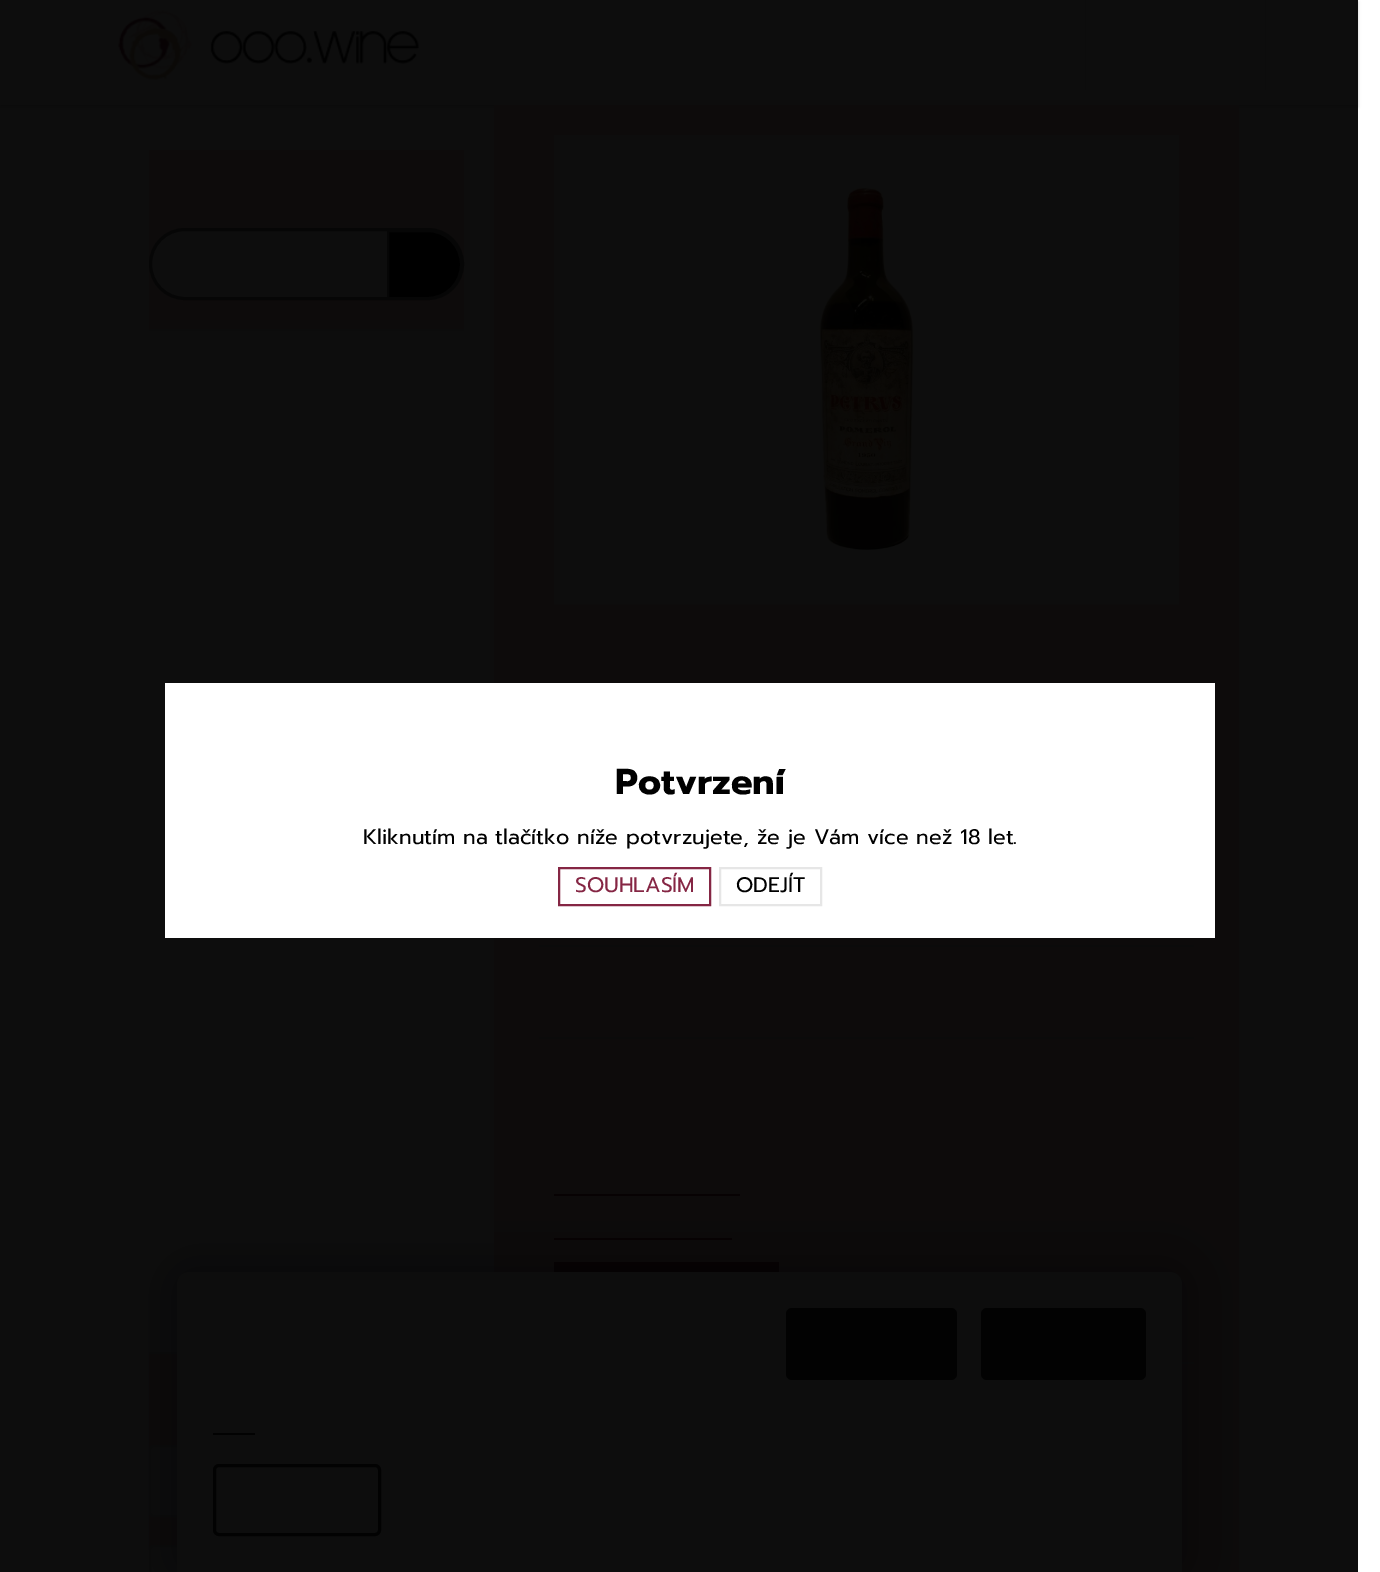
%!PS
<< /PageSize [1380 1572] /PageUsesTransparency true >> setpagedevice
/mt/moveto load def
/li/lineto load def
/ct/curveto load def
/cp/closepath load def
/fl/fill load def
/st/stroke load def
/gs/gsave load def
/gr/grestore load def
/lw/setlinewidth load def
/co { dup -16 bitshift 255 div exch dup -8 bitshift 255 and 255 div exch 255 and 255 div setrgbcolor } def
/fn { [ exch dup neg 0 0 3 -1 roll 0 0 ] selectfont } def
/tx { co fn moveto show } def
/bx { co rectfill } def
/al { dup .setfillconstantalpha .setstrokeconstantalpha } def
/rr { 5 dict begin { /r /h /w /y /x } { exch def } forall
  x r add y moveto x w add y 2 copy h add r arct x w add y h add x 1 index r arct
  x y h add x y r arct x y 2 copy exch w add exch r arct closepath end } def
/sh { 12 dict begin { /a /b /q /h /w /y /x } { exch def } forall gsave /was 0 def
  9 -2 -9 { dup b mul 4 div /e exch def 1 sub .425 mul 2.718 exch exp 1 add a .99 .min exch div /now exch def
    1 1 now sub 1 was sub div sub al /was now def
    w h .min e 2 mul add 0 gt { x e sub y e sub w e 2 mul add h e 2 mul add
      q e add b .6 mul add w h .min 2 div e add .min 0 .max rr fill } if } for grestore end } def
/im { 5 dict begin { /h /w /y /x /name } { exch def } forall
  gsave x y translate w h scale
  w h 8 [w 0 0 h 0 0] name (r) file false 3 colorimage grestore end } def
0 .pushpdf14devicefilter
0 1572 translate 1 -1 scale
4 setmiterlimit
0 0 1380 1572 16#FFFFFF bx
16#000000 co
0 2 1358 105 0 1.5 .16 sh
0 0 1358 105 16#FFFFFF bx
(media/1.raw) 118 10 301 70 im
1085 0 1 90 16#EFEFEF bx
1265 0 1 90 16#EFEFEF bx
1355 0 2 90 16#EFEFEF bx
149 150 315 179 16#F7D2D0 bx
16#FFFFFF co
150.5 229.5 312 69 34.5 rr gs fl gr
16#777777 co
3 lw
st
16#000000 co
388 231 mt 427.5 231 li 446 231 461 246 461 264.5 ct 461 283 446 298 427.5 298 ct 388 298 li cp gs fl gr
16#777777 co
2 lw
st
149 329 315 2 16#E6E6E6 bx
149 1354 28 196 16#F7D2D0 bx
149 1352 28 2 16#E6E6E6 bx
16#FFFFFF co
150 1446 313 70 4 rr gs fl gr
16#E6E6E6 co
st
16#FFFFFF co
150 1546 313 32 4 rr gs fl gr
16#E6E6E6 co
st
494 105 745 1467 16#F7D2D0 bx
(media/2.raw) 553 135 626 470 im
539 945 655 2 16#D4D4D4 bx
539 1037 655 2 16#D4D4D4 bx
1182 1362 12 2 16#E7E7E7 bx
554 1194 186 2 16#852644 bx
554 1238 178 2 16#852644 bx
554 1262 225 10 16#822544 bx
16#1B1939 co
177 1272 1005 300 12 22.5 .5 sh
16#F8FAFB co
189 1272 mt 1170 1272 li 1176.5 1272 1182 1277.5 1182 1284 ct 1182 1572 li 177 1572 li 177 1284 li 177 1277.5 182.5 1272 189 1272 ct cp fl
16#252525 co
786 1308 171 72 6 rr fl
981 1308 165 72 6 rr fl
213 1433 42 2 16#252525 bx
3 lw
214.5 1465.5 165 69 4.5 rr st
0.95 al
0 0 1358 1572 16#000000 bx
1 al
165 683 1050 255 16#FFFFFF bx
16#852644 co
2 lw
559 868 151 37 rectstroke
16#E6E6E6 co
720 868 101 37 rectstroke
(Potvrzení) 615 794 /Prompt-Bold 36 16#000000 tx
(Kliknutím na tlačítko níže potvrzujete, že je Vám více než 18 let.) 363 844 /Prompt-Regular 21 16#000000 tx
(SOUHLASÍM) 575 892 /Prompt-Regular 21 16#852644 tx
(ODEJÍT) 736 892 /Prompt-Regular 21 16#000000 tx
.poppdf14devicefilter showpage
